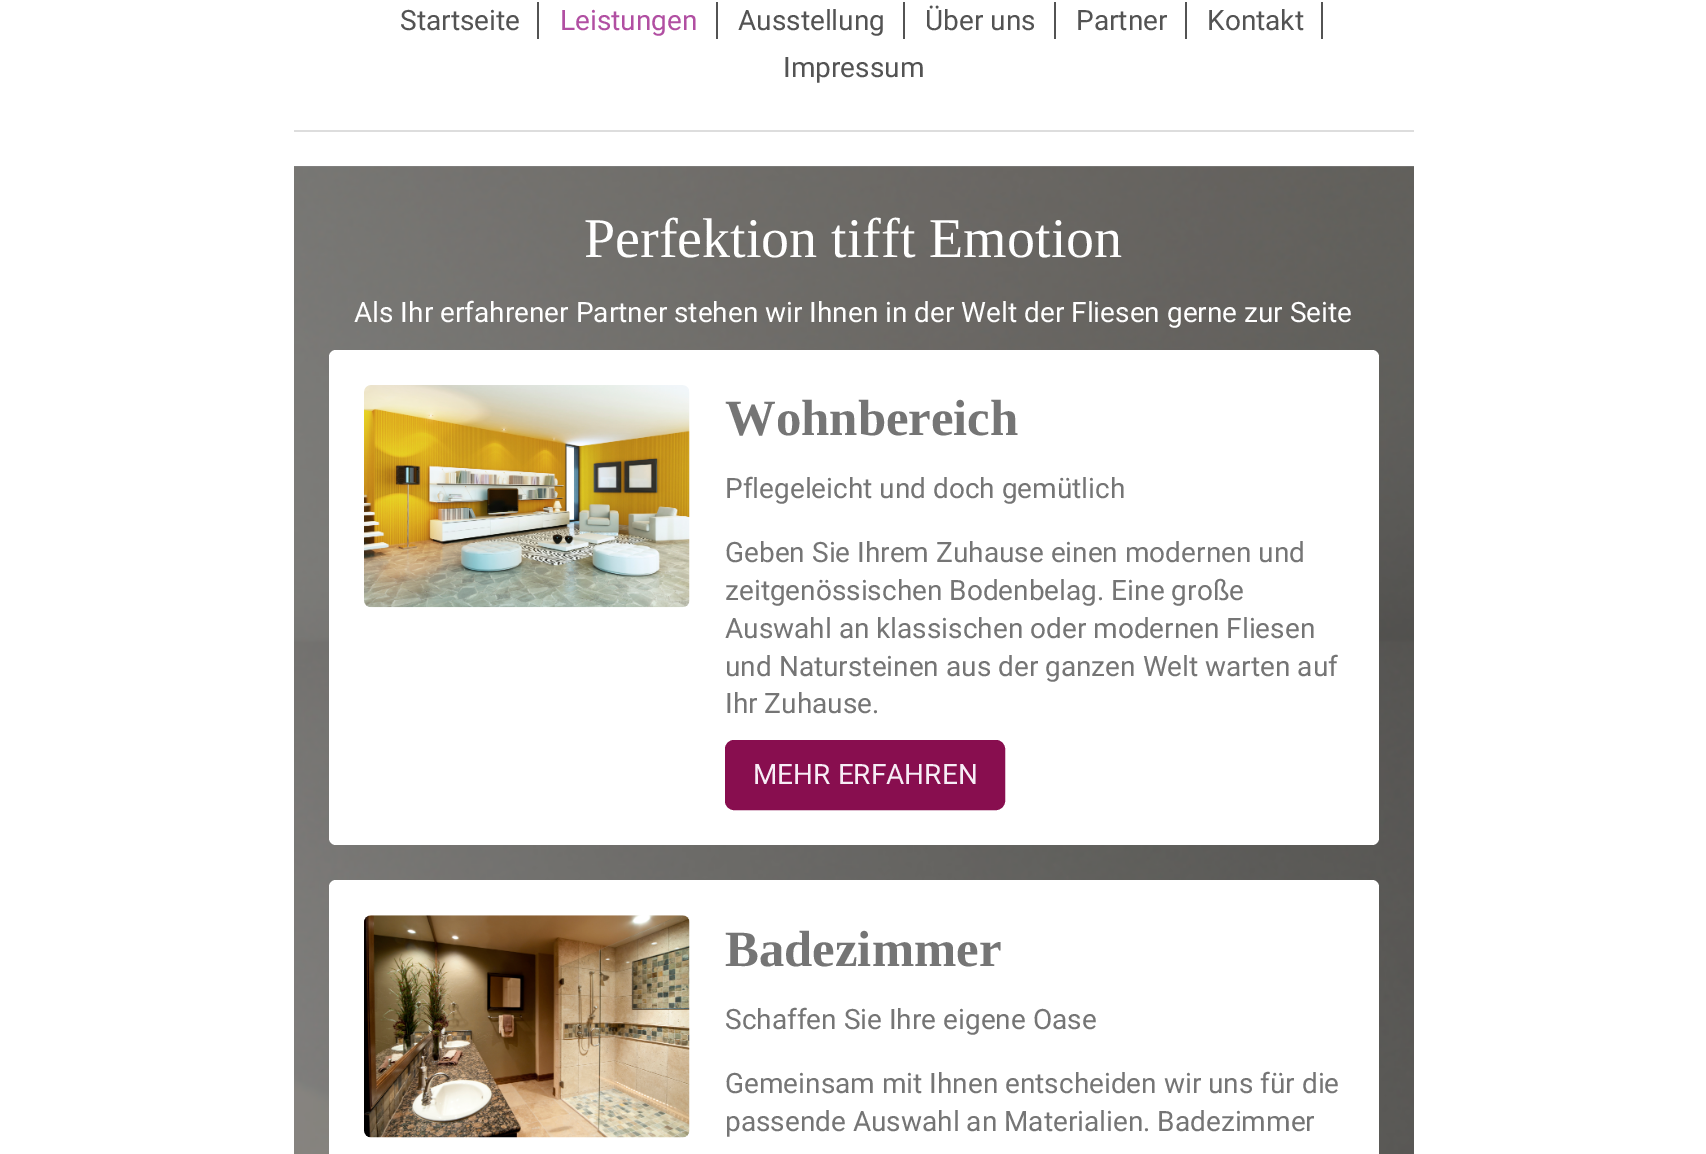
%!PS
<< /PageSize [1706 1154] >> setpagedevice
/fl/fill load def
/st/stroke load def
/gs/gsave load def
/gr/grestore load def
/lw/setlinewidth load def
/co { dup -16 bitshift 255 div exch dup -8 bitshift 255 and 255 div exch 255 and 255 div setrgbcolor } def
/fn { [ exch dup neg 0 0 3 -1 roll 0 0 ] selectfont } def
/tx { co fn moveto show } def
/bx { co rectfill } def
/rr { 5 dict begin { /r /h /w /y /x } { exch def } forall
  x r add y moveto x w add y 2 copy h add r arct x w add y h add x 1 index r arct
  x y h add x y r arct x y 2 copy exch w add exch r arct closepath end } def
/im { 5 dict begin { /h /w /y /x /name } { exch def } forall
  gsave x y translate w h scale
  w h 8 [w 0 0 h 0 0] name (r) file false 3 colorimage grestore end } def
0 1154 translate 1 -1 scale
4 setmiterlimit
0 0 1706 1154 16#FFFFFF bx
294 166 1120 1 16#8C8C8C bx
294 130 1120 2 16#DDDDDD bx
537 2 2 37 16#535353 bx
716 2 2 37 16#535353 bx
903 2 2 37 16#535353 bx
1054 2 2 37 16#535353 bx
1185 2 2 37 16#535353 bx
1321 2 2 37 16#535353 bx
(media/1.raw) 294 166 1120 988 im
16#FFFFFF co
329 350 1050 495 7 rr fl
(media/2.raw) 364 385 326 223 im
16#880E4F co
726 741 278 68 8 rr gs fl gr
2 lw
st
16#FFFFFF co
329 880 1050 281 7 rr fl
(media/3.raw) 364 915 326 223 im
(Startseite) 400 30 /Roboto-Regular 28 16#535353 tx
(Leistungen) 560 30 /Roboto-Regular 28 16#B14FA2 tx
(Ausstellung) 738 30 /Roboto-Regular 28 16#535353 tx
(Über uns) 925 30 /Roboto-Regular 28 16#535353 tx
(Partner) 1076 30 /Roboto-Regular 28 16#535353 tx
(Kontakt) 1207 30 /Roboto-Regular 28 16#535353 tx
(Impressum) 783 77 /Roboto-Regular 28 16#535353 tx
(Perfektion tifft Emotion) 584 257 /LiberationSerif-Regular 56 16#FFFFFF tx
(Als Ihr erfahrener Partner stehen wir Ihnen in der Welt der Fliesen gerne zur Seite) 354 322 /Roboto-Regular 28 16#FFFFFF tx
(Wohnbereich) 725 435 /LiberationSerif-Bold 50.75 16#757575 tx
(Pflegeleicht und doch gemütlich) 725 498 /Roboto-Regular 28 16#757575 tx
(Geben Sie Ihrem Zuhause einen modernen und) 725 562 /Roboto-Regular 28 16#757575 tx
(zeitgenössischen Bodenbelag. Eine große) 725 600 /Roboto-Regular 28 16#757575 tx
(Auswahl an klassischen oder modernen Fliesen) 725 638 /Roboto-Regular 28 16#757575 tx
(und Natursteinen aus der ganzen Welt warten auf) 725 676 /Roboto-Regular 28 16#757575 tx
(Ihr Zuhause.) 725 713 /Roboto-Regular 28 16#757575 tx
(MEHR ERFAHREN) 753 784 /Roboto-Regular 28 16#F7EDF6 tx
(Badezimmer) 725 966 /LiberationSerif-Bold 50.75 16#757575 tx
(Schaffen Sie Ihre eigene Oase) 725 1029 /Roboto-Regular 28 16#757575 tx
(Gemeinsam mit Ihnen entscheiden wir uns für die) 725 1093 /Roboto-Regular 28 16#757575 tx
(passende Auswahl an Materialien. Badezimmer) 725 1131 /Roboto-Regular 28 16#757575 tx
showpage
